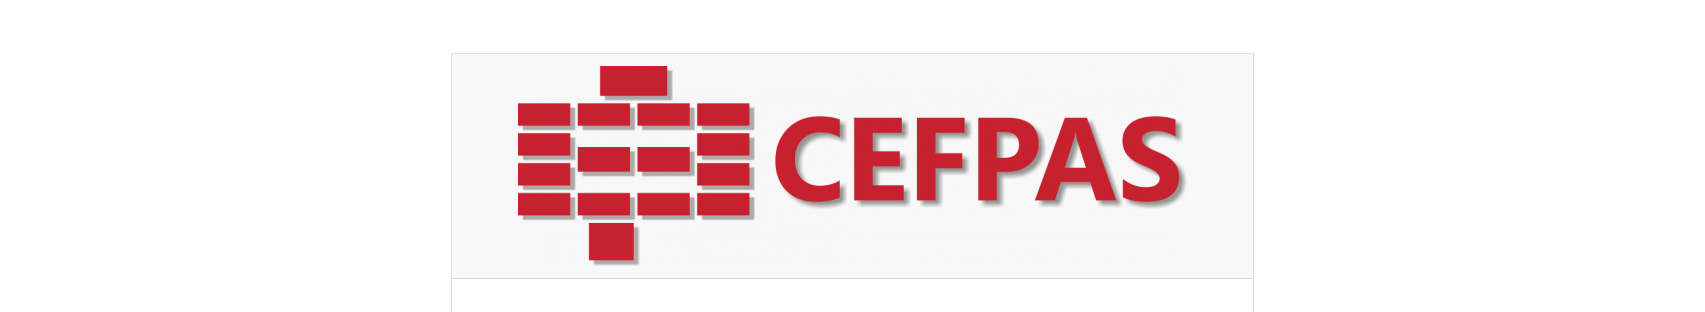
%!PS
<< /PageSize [1705 312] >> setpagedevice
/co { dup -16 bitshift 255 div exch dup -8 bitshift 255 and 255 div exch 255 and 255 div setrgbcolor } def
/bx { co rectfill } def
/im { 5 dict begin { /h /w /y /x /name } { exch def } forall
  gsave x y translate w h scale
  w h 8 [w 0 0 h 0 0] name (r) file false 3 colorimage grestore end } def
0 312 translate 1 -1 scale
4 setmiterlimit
0 0 1705 312 16#FFFFFF bx
16#DFDFDF co
451.5 53.5 802 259 rectstroke
452 54 801 224 16#F8F8F8 bx
452 278 801 1 16#D9D9D9 bx
(media/1.raw) 518 66 669 200 im
showpage
